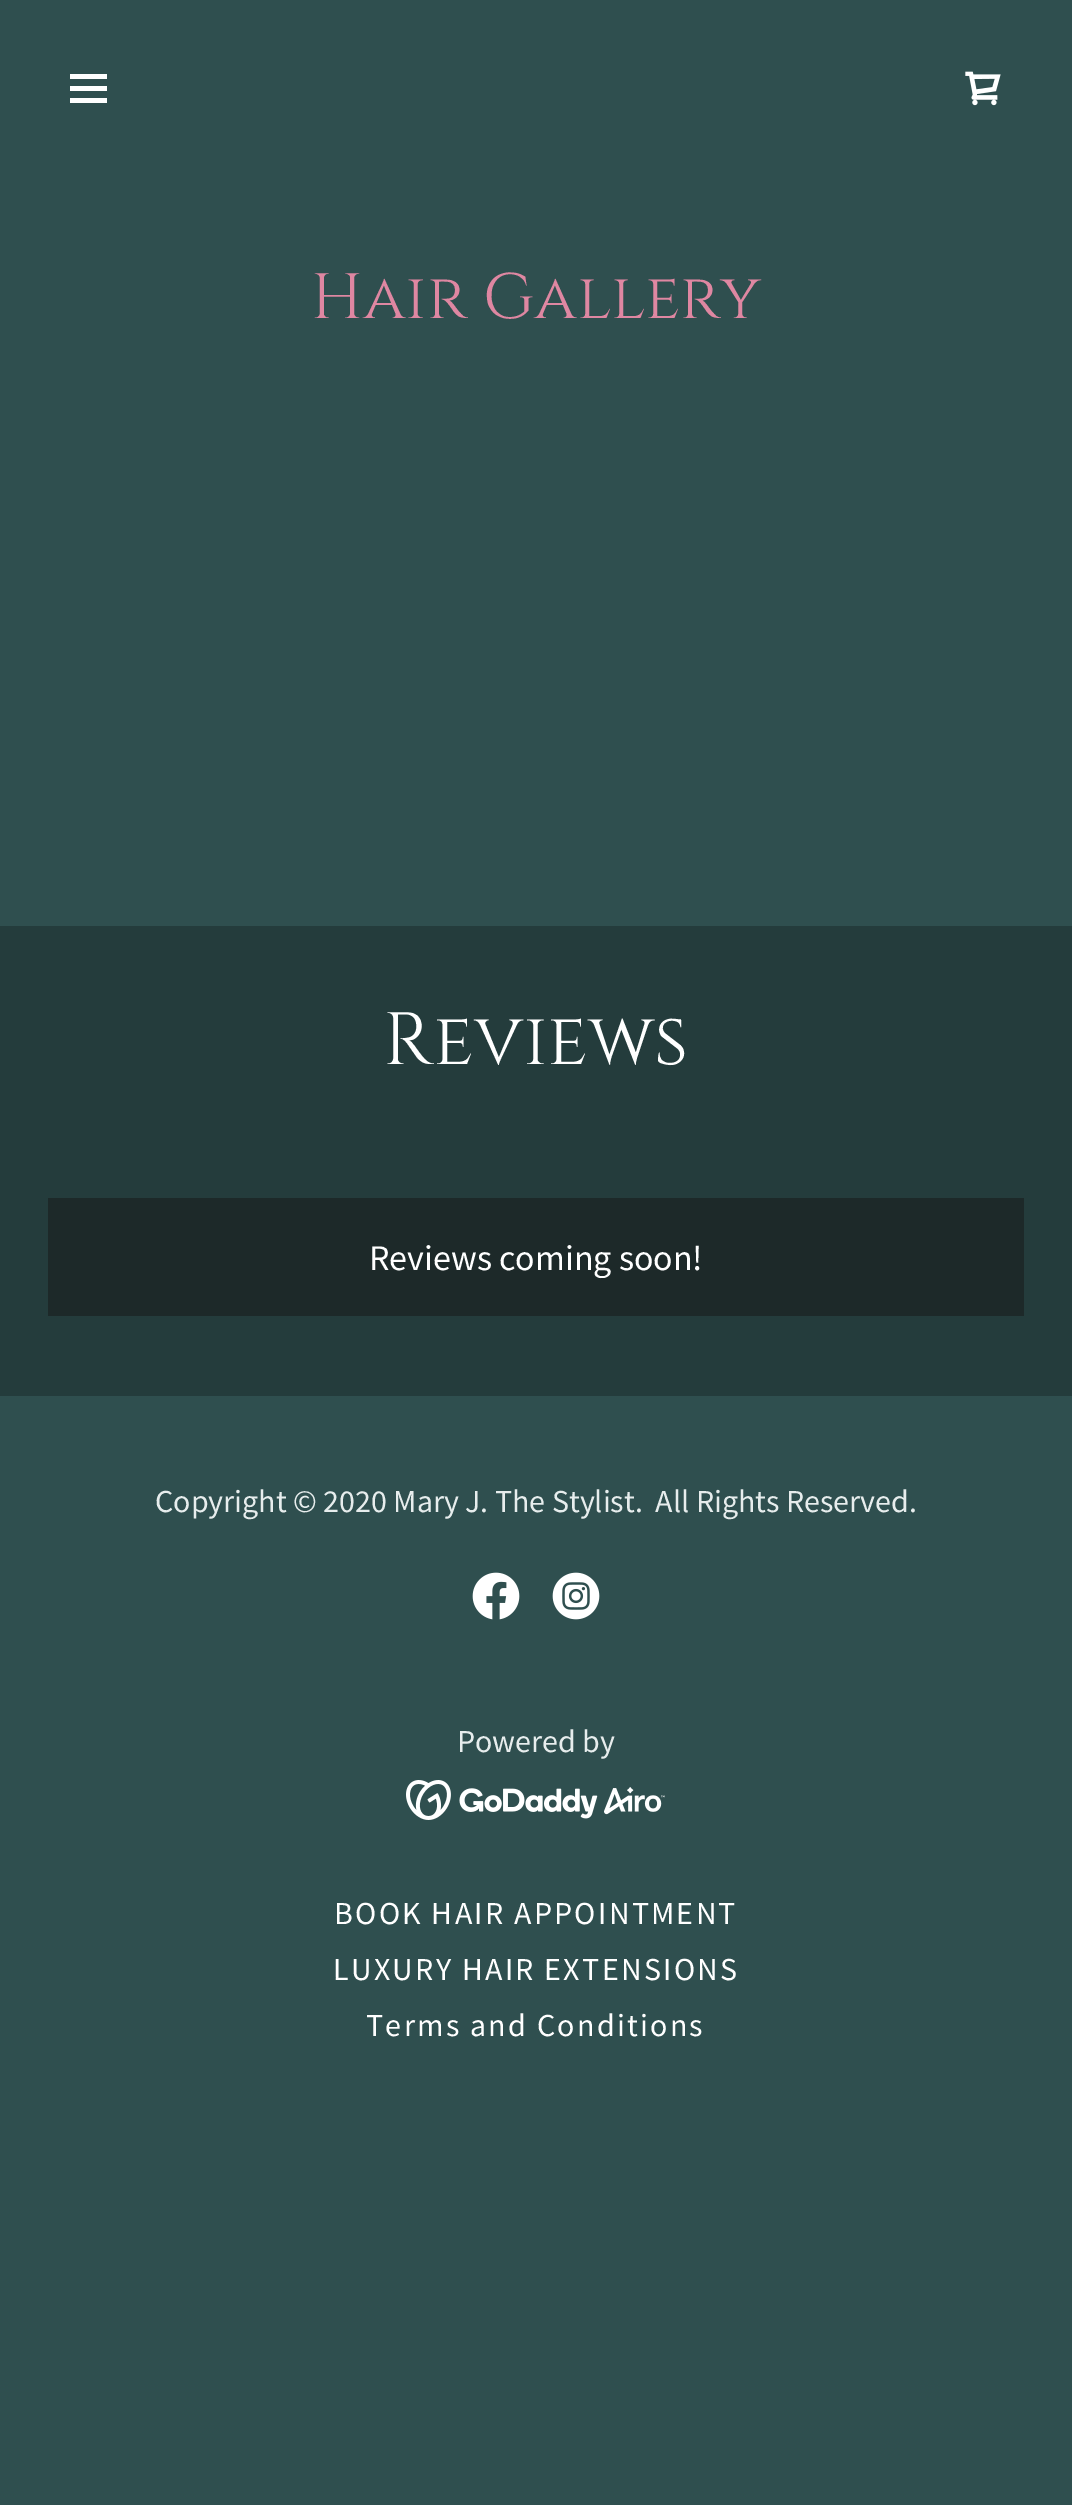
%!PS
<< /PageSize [1072 2505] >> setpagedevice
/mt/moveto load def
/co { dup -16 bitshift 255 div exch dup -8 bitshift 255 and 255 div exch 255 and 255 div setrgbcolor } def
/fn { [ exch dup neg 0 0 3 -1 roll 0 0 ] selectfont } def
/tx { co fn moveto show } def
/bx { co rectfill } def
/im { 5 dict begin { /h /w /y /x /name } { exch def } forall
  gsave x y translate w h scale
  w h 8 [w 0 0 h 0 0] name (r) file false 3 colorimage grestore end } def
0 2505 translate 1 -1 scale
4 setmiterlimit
0 0 1072 2505 16#2F4F4F bx
70 74 37 5 16#FFFFFF bx
70 86 37 5 16#FFFFFF bx
70 98 37 5 16#FFFFFF bx
(media/1.raw) 965 71 36 35 im
0 926 1072 470 16#243C3C bx
48 1198 976 118 16#1D2929 bx
(media/2.raw) 472 1572 48 48 im
(media/3.raw) 552 1572 48 48 im
(media/4.raw) 406 1780 259 40 im
(Hair Gallery) 311 318 /Cinzel-Regular 64 16#DF87A2 tx
(Reviews) 383 1064 /Cinzel-Regular 74 16#FFFFFF tx
(Reviews coming soon!) 369 1270 /SourceSansPro-Regular 36 16#FFFFFF tx
(Copyright © 2020 Mary J. The Stylist.  All Rights Reserved.) 155 1512 /SourceSansPro-Regular 32 16#E7EDED tx
(Powered by) 457 1752 /SourceSansPro-Regular 32 16#E7EDED tx
16#FFFFFF co
334 1924 mt 2.25 0 (BOOK HAIR APPOINTMENT) ashow
333 1980 mt 2.25 0 (LUXURY HAIR EXTENSIONS) ashow
366 2036 mt 2.25 0 (Terms and Conditions) ashow
showpage
